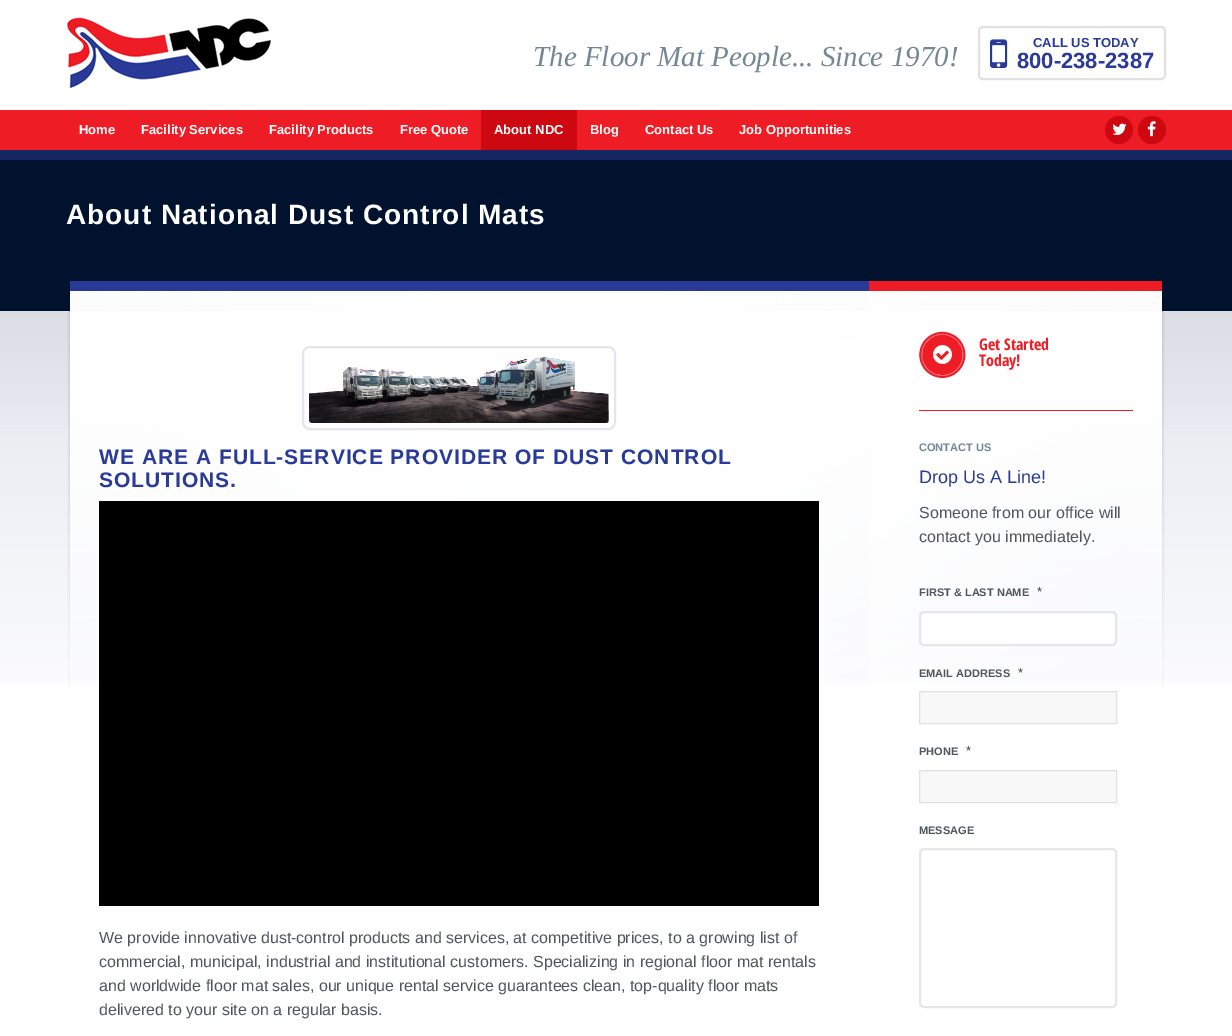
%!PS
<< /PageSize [1232 1036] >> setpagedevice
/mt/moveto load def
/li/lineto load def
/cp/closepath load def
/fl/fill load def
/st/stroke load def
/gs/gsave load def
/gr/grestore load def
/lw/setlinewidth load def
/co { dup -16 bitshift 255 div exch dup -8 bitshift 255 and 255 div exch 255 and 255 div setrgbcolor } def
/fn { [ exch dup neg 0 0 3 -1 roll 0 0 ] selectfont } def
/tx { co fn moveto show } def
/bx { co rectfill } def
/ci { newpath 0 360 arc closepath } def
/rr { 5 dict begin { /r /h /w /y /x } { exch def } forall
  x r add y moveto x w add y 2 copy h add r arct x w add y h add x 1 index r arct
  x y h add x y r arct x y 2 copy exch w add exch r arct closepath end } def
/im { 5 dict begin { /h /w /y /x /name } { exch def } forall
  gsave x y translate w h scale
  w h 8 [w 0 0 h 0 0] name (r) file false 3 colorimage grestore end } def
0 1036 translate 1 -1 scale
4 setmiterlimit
0 0 1232 1036 16#FFFFFF bx
(media/1.raw) 67 17 204 73 im
16#E1E1E1 co
2 lw
979 27 186 52 4 rr st
(media/2.raw) 990 39 18 29 im
0 150 1232 10 16#152663 bx
0 110 1232 40 16#EE1C25 bx
481 110 96 40 16#CE0811 bx
1119 130 14 ci fl
(media/3.raw) 1112 123 15 12 im
1152 130 14 ci fl
(media/4.raw) 1147 121 9 16 im
0 160 1232 151 16#00122E bx
(media/5.raw) 0 311 1232 373 im
(media/6.raw) 67 281 802 408 im
16#E5E6EB co
303 347 312 82 7 rr st
(media/7.raw) 309 357 300 66 im
99 501 720 405 16#000000 bx
(media/8.raw) 869 281 296 408 im
(media/9.raw) 919 331 47 47 im
919 410 214 1 16#EE1C25 bx
16#FFFFFF co
920 612 196 33 4 rr gs fl gr
16#E5E6EB co
st
16#F8F8F8 co
919.5 691.5 mt 1116.5 691.5 li 1116.5 723.5 li 919.5 723.5 li cp gs fl gr
16#E1E1E1 co
1 lw
st
16#F8F8F8 co
919.5 770.5 mt 1116.5 770.5 li 1116.5 802.5 li 919.5 802.5 li cp gs fl gr
16#E1E1E1 co
st
16#E5E6EB co
2 lw
920 849 196 158 4 rr st
(The Floor Mat People... Since 1970!) 533 66 /LiberationSerif-Italic 29 16#748796 tx
(CALL US TODAY) 1033 47 /LiberationSans-Bold 13 16#293A98 tx
(800-238-2387) 1017 68 /LiberationSans-Bold 22 16#293A98 tx
(Home) 79 134 /LiberationSans-Bold 13 16#FFFFFF tx
(Facility Services) 141 134 /LiberationSans-Bold 13 16#FFFFFF tx
(Facility Products) 269 134 /LiberationSans-Bold 13 16#FFFFFF tx
(Free Quote) 400 134 /LiberationSans-Bold 13 16#FFFFFF tx
(About NDC) 494 134 /LiberationSans-Bold 13 16#FFFFFF tx
(Blog) 590 134 /LiberationSans-Bold 13 16#FFFFFF tx
(Contact Us) 645 134 /LiberationSans-Bold 13 16#FFFFFF tx
(Job Opportunities) 739 134 /LiberationSans-Bold 13 16#FFFFFF tx
/LiberationSans-Bold 28 fn
66 224 mt 1 0 (About National Dust Control Mats) ashow
/LiberationSans-Bold 21 fn
16#293A98 co
99 464 mt 1 0 (WE ARE A FULL-SERVICE PROVIDER OF DUST CONTROL) ashow
99 487 mt 1 0 (SOLUTIONS.) ashow
(We provide innovative dust-control products and services, at competitive prices, to a growing list of) 99 943 /LiberationSans-Regular 16 16#4F565C tx
(commercial, municipal, industrial and institutional customers. Specializing in regional floor mat rentals) 99 967 /LiberationSans-Regular 16 16#4F565C tx
(and worldwide floor mat sales, our unique rental service guarantees clean, top-quality floor mats) 99 991 /LiberationSans-Regular 16 16#4F565C tx
(delivered to your site on a regular basis.) 99 1015 /LiberationSans-Regular 16 16#4F565C tx
(Get Started) 979 350 /OpenSansCondensed-Bold 16 16#EE1C25 tx
(Today!) 979 366 /OpenSansCondensed-Bold 16 16#EE1C25 tx
(CONTACT US) 919 451 /LiberationSans-Bold 11 16#748796 tx
(Drop Us A Line!) 919 483 /LiberationSans-Regular 18 16#293A98 tx
(Someone from our office will) 919 518 /LiberationSans-Regular 16 16#4F565C tx
(contact you immediately.) 919 542 /LiberationSans-Regular 16 16#4F565C tx
(FIRST & LAST NAME) 919 596 /LiberationSans-Bold 11 16#4F565C tx
(*) 1037 596 /LiberationSans-Regular 13 16#444444 tx
(EMAIL ADDRESS) 919 677 /LiberationSans-Bold 11 16#4F565C tx
(*) 1018 677 /LiberationSans-Regular 13 16#444444 tx
(PHONE) 919 755 /LiberationSans-Bold 11 16#4F565C tx
(*) 966 755 /LiberationSans-Regular 13 16#444444 tx
(MESSAGE) 919 834 /LiberationSans-Bold 11 16#4F565C tx
showpage
